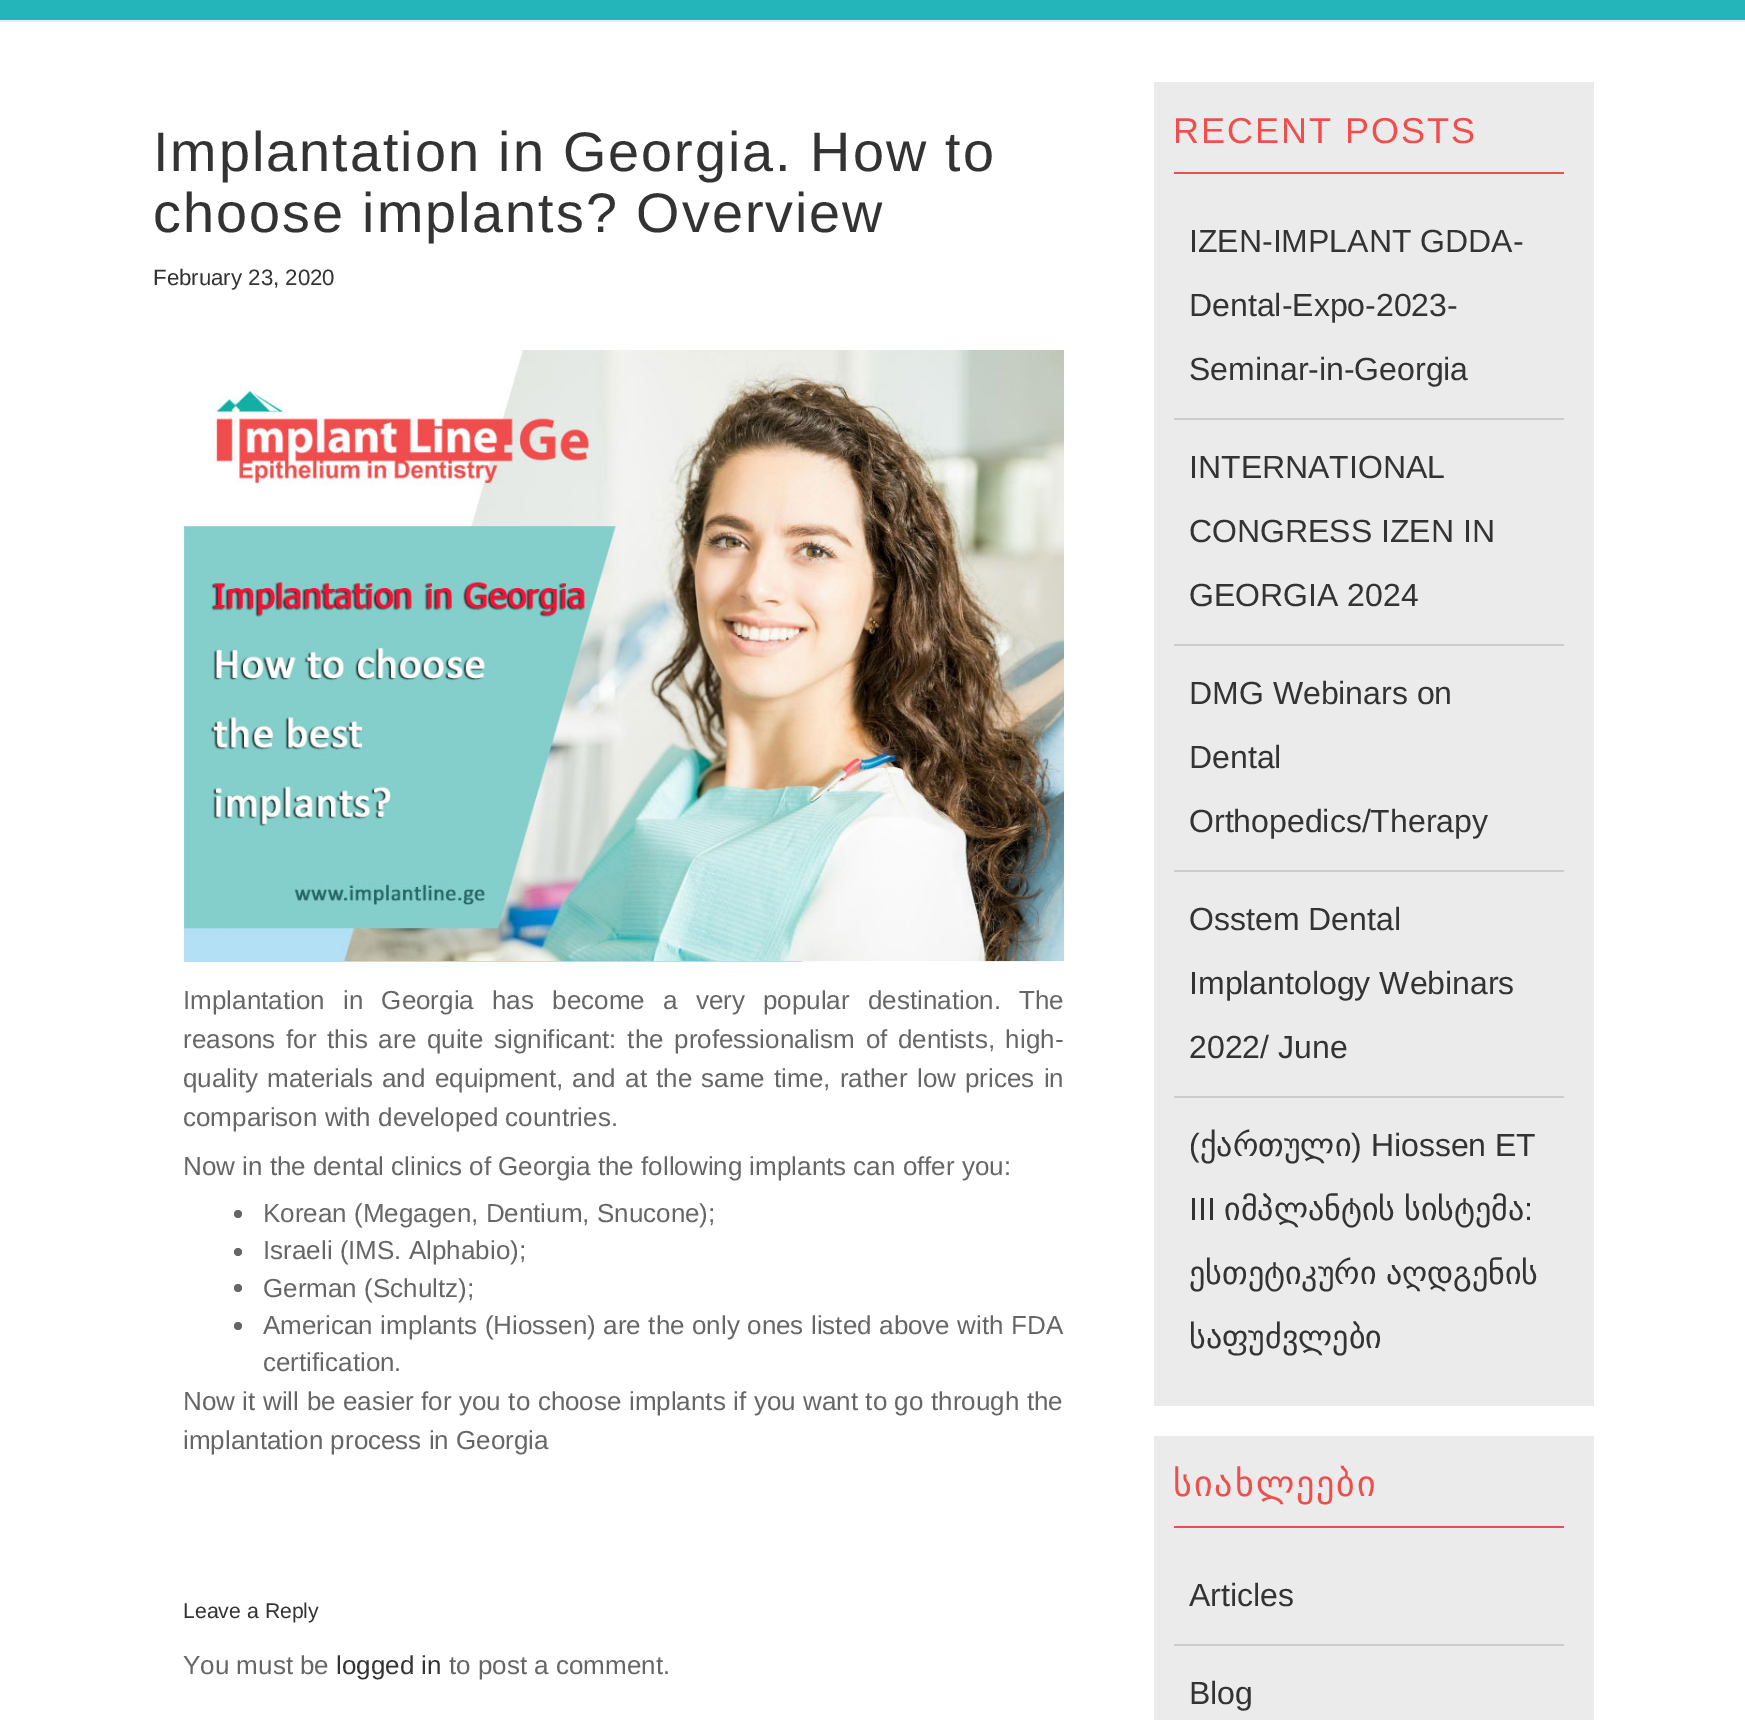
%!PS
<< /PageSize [1745 1720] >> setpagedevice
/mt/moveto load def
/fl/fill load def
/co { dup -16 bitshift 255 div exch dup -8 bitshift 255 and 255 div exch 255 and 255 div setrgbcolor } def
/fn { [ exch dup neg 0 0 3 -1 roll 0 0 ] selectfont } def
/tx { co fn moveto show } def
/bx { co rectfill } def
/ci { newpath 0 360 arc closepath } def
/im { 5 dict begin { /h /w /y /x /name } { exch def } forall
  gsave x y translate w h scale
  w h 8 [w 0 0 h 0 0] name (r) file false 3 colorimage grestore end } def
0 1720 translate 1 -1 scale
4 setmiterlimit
0 0 1745 1720 16#FFFFFF bx
0 0 1745 20 16#23B5B9 bx
0 20 1745 2 16#EBEBEB bx
(media/1.raw) 184 350 880 612 im
16#666666 co
238 1214 4 ci fl
238 1252 4 ci fl
238 1288 4 ci fl
238 1326 4 ci fl
1154 82 440 1324 16#EBEBEB bx
1174 172 390 2 16#F04D4D bx
1174 418 390 2 16#CCCCCC bx
1174 644 390 2 16#CCCCCC bx
1174 870 390 2 16#CCCCCC bx
1174 1096 390 2 16#CCCCCC bx
1154 1436 440 284 16#EBEBEB bx
1174 1526 390 2 16#F04D4D bx
1174 1644 390 2 16#CCCCCC bx
/LiberationSans-Regular 55.75 fn
16#333333 co
153 171 mt 2 0 (Implantation in Georgia. How to) ashow
153 232 mt 2 0 (choose implants? Overview) ashow
(February 23, 2020) 153 285 /LiberationSans-Regular 22.25 16#333333 tx
/LiberationSans-Regular 26 fn
16#666666 co
183 1009 mt 11 0 32 (Implantation in Georgia has become a very popular destination. The) widthshow
183 1048 mt 3.5 0 32 (reasons for this are quite significant: the professionalism of dentists, high-) widthshow
183 1087 mt 2 0 32 (quality materials and equipment, and at the same time, rather low prices in) widthshow
(comparison with developed countries.) 183 1126 /LiberationSans-Regular 26 16#666666 tx
(Now in the dental clinics of Georgia the following implants can offer you:) 183 1175 /LiberationSans-Regular 26 16#666666 tx
(Korean \(Megagen, Dentium, Snucone\);) 263 1222 /LiberationSans-Regular 26 16#666666 tx
(Israeli \(IMS. Alphabio\);) 263 1259 /LiberationSans-Regular 26 16#666666 tx
(German \(Schultz\);) 263 1297 /LiberationSans-Regular 26 16#666666 tx
263 1334 mt .25 0 32 (American implants \(Hiossen\) are the only ones listed above with FDA) widthshow
(certification.) 263 1371 /LiberationSans-Regular 26 16#666666 tx
183 1410 mt .25 0 32 (Now it will be easier for you to choose implants if you want to go through the) widthshow
(implantation process in Georgia) 183 1449 /LiberationSans-Regular 26 16#666666 tx
(Leave a Reply) 183 1618 /LiberationSans-Regular 21.25 16#333333 tx
(You must be) 183 1674 /LiberationSans-Regular 26 16#666666 tx
(logged in) 336 1674 /LiberationSans-Regular 26 16#333333 tx
(to post a comment.) 449 1674 /LiberationSans-Regular 26 16#666666 tx
/LiberationSans-Regular 36 fn
16#F04D4D co
1173 143 mt 2 0 (RECENT POSTS) ashow
(IZEN-IMPLANT GDDA-) 1189 252 /LiberationSans-Regular 32 16#333333 tx
(Dental-Expo-2023-) 1189 316 /LiberationSans-Regular 32 16#333333 tx
(Seminar-in-Georgia) 1189 380 /LiberationSans-Regular 32 16#333333 tx
(INTERNATIONAL) 1189 478 /LiberationSans-Regular 32 16#333333 tx
(CONGRESS IZEN IN) 1189 542 /LiberationSans-Regular 32 16#333333 tx
(GEORGIA 2024) 1189 606 /LiberationSans-Regular 32 16#333333 tx
(DMG Webinars on) 1189 704 /LiberationSans-Regular 32 16#333333 tx
(Dental) 1189 768 /LiberationSans-Regular 32 16#333333 tx
(Orthopedics/Therapy) 1189 832 /LiberationSans-Regular 32 16#333333 tx
(Osstem Dental) 1189 930 /LiberationSans-Regular 32 16#333333 tx
(Implantology Webinars) 1189 994 /LiberationSans-Regular 32 16#333333 tx
(2022/ June) 1189 1058 /LiberationSans-Regular 32 16#333333 tx
(\() 1189 1156 /LiberationSans-Regular 32 16#333333 tx
(ქართული) 1200 1156 /DejaVuSans-Regular 32 16#333333 tx
(\) Hiossen ET) 1351 1156 /LiberationSans-Regular 32 16#333333 tx
(III) 1189 1220 /LiberationSans-Regular 32 16#333333 tx
/DejaVuSans-Regular 32 fn
1224 1220 mt -1 0 32 (იმპლანტის სისტემა) widthshow
(:) 1524 1220 /LiberationSans-Regular 32 16#333333 tx
/DejaVuSans-Regular 32 fn
1189 1284 mt -1 0 32 (ესთეტიკური აღდგენის) widthshow
(საფუძვლები) 1189 1348 /DejaVuSans-Regular 32 16#333333 tx
/DejaVuSans-Regular 36 fn
16#F04D4D co
1173 1496 mt 2 0 (სიახლეები) ashow
(Articles) 1189 1606 /LiberationSans-Regular 32 16#333333 tx
(Blog) 1189 1704 /LiberationSans-Regular 32 16#333333 tx
showpage
